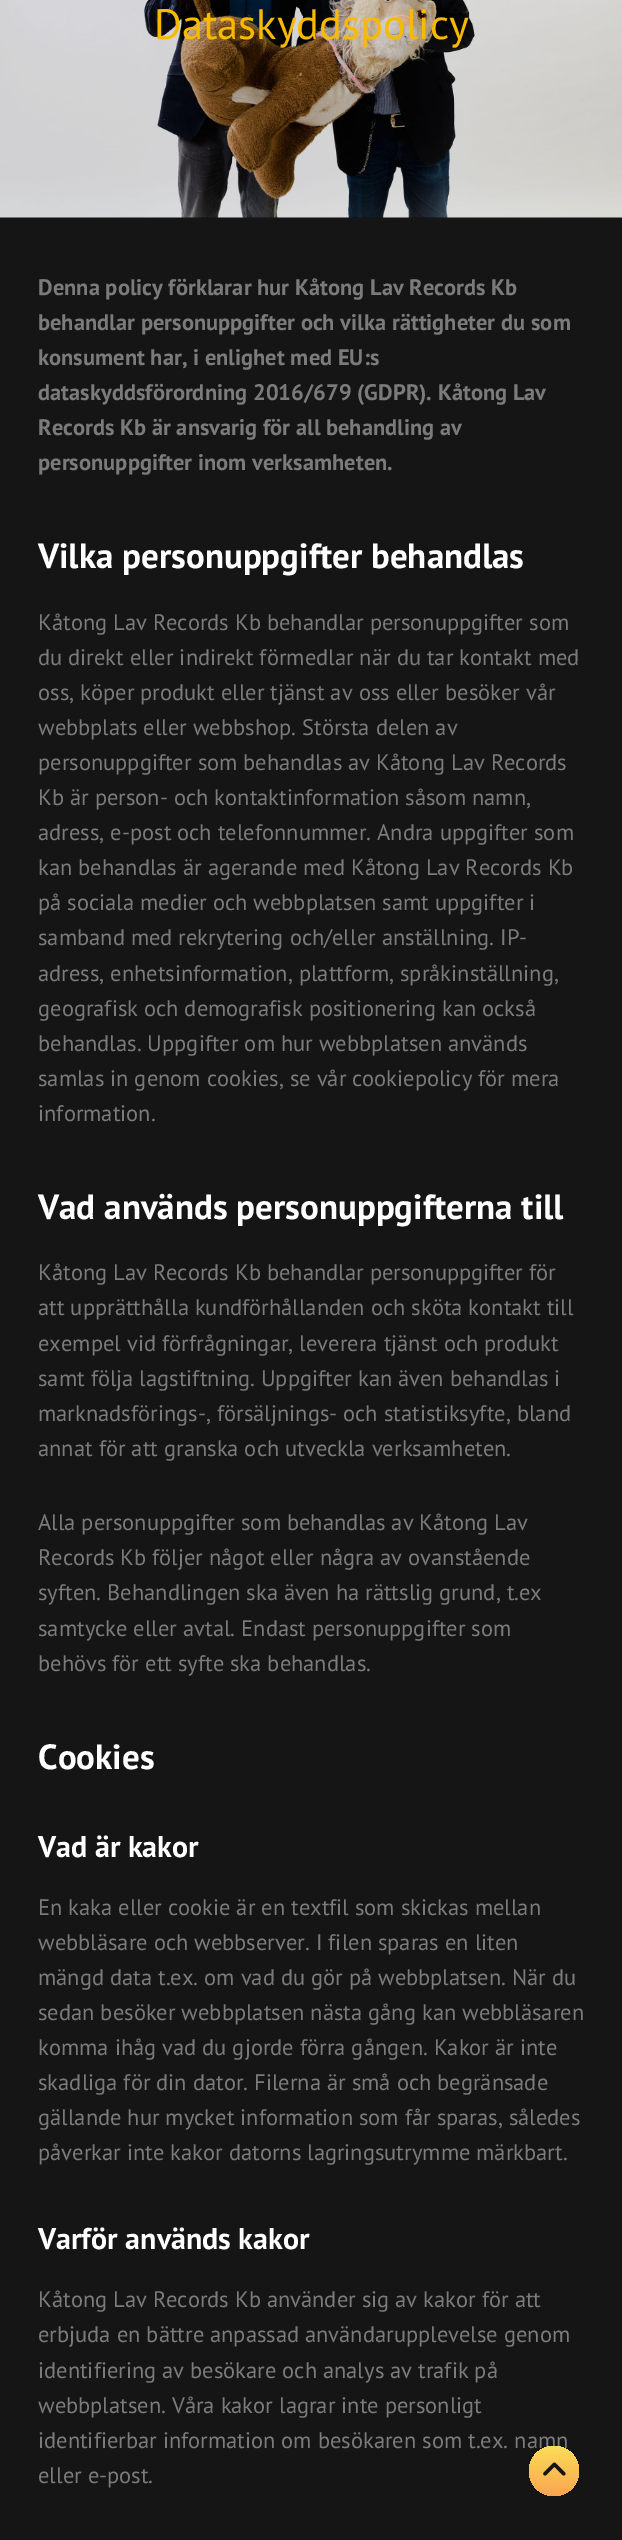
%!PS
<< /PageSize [622 2540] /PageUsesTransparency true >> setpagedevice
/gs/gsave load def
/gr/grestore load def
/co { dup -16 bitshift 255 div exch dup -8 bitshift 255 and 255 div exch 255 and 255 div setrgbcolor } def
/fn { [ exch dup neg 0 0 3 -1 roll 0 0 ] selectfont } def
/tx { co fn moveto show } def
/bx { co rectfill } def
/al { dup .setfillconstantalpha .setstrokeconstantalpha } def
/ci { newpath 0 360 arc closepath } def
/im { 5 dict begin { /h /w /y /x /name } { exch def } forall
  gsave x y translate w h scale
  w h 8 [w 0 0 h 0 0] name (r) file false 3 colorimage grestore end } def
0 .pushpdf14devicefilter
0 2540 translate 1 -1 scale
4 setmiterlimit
0 0 622 2540 16#151515 bx
0 217 622 1 16#101010 bx
(media/1.raw) 0 0 622 218 im
(Dataskyddspolicy) 154 39 /PTSans-Regular 42.5 16#F7BA00 tx
(Denna policy förklarar hur Kåtong Lav Records Kb) 38 295 /PTSans-Bold 22.5 16#7B7B7B tx
(behandlar personuppgifter och vilka rättigheter du som) 38 330 /PTSans-Bold 22.5 16#7B7B7B tx
(konsument har, i enlighet med EU:s) 38 365 /PTSans-Bold 22.5 16#7B7B7B tx
(dataskyddsförordning 2016/679 \(GDPR\). Kåtong Lav) 38 400 /PTSans-Bold 22.5 16#7B7B7B tx
(Records Kb är ansvarig för all behandling av) 38 435 /PTSans-Bold 22.5 16#7B7B7B tx
(personuppgifter inom verksamheten.) 38 470 /PTSans-Bold 22.5 16#7B7B7B tx
(Vilka personuppgifter behandlas) 38 568 /PTSans-Bold 35 16#FFFFFF tx
(Kåtong Lav Records Kb behandlar personuppgifter som) 38 630 /PTSans-Regular 22.5 16#7B7B7B tx
(du direkt eller indirekt förmedlar när du tar kontakt med) 38 665 /PTSans-Regular 22.5 16#7B7B7B tx
(oss, köper produkt eller tjänst av oss eller besöker vår) 38 700 /PTSans-Regular 22.5 16#7B7B7B tx
(webbplats eller webbshop. Största delen av) 38 735 /PTSans-Regular 22.5 16#7B7B7B tx
(personuppgifter som behandlas av Kåtong Lav Records) 38 770 /PTSans-Regular 22.5 16#7B7B7B tx
(Kb är person- och kontaktinformation såsom namn,) 38 805 /PTSans-Regular 22.5 16#7B7B7B tx
(adress, e-post och telefonnummer. Andra uppgifter som) 38 840 /PTSans-Regular 22.5 16#7B7B7B tx
(kan behandlas är agerande med Kåtong Lav Records Kb) 38 875 /PTSans-Regular 22.5 16#7B7B7B tx
(på sociala medier och webbplatsen samt uppgifter i) 38 910 /PTSans-Regular 22.5 16#7B7B7B tx
(samband med rekrytering och/eller anställning. IP-) 38 945 /PTSans-Regular 22.5 16#7B7B7B tx
(adress, enhetsinformation, plattform, språkinställning,) 38 981 /PTSans-Regular 22.5 16#7B7B7B tx
(geografisk och demografisk positionering kan också) 38 1016 /PTSans-Regular 22.5 16#7B7B7B tx
(behandlas. Uppgifter om hur webbplatsen används) 38 1051 /PTSans-Regular 22.5 16#7B7B7B tx
(samlas in genom cookies, se vår cookiepolicy för mera) 38 1086 /PTSans-Regular 22.5 16#7B7B7B tx
(information.) 38 1121 /PTSans-Regular 22.5 16#7B7B7B tx
(Vad används personuppgifterna till) 38 1219 /PTSans-Bold 35 16#FFFFFF tx
(Kåtong Lav Records Kb behandlar personuppgifter för) 38 1280 /PTSans-Regular 22.5 16#7B7B7B tx
(att upprätthålla kundförhållanden och sköta kontakt till) 38 1315 /PTSans-Regular 22.5 16#7B7B7B tx
(exempel vid förfrågningar, leverera tjänst och produkt) 38 1351 /PTSans-Regular 22.5 16#7B7B7B tx
(samt följa lagstiftning. Uppgifter kan även behandlas i) 38 1386 /PTSans-Regular 22.5 16#7B7B7B tx
(marknadsförings-, försäljnings- och statistiksyfte, bland) 38 1421 /PTSans-Regular 22.5 16#7B7B7B tx
(annat för att granska och utveckla verksamheten.) 38 1456 /PTSans-Regular 22.5 16#7B7B7B tx
(Alla personuppgifter som behandlas av Kåtong Lav) 38 1530 /PTSans-Regular 22.5 16#7B7B7B tx
(Records Kb följer något eller några av ovanstående) 38 1565 /PTSans-Regular 22.5 16#7B7B7B tx
(syften. Behandlingen ska även ha rättslig grund, t.ex) 38 1600 /PTSans-Regular 22.5 16#7B7B7B tx
(samtycke eller avtal. Endast personuppgifter som) 38 1636 /PTSans-Regular 22.5 16#7B7B7B tx
(behövs för ett syfte ska behandlas.) 38 1671 /PTSans-Regular 22.5 16#7B7B7B tx
(Cookies) 38 1769 /PTSans-Bold 35 16#FFFFFF tx
(Vad är kakor) 38 1857 /PTSans-Bold 30 16#FFFFFF tx
(En kaka eller cookie är en textfil som skickas mellan) 38 1915 /PTSans-Regular 22.5 16#7B7B7B tx
(webbläsare och webbserver. I filen sparas en liten) 38 1950 /PTSans-Regular 22.5 16#7B7B7B tx
(mängd data t.ex. om vad du gör på webbplatsen. När du) 38 1985 /PTSans-Regular 22.5 16#7B7B7B tx
(sedan besöker webbplatsen nästa gång kan webbläsaren) 38 2020 /PTSans-Regular 22.5 16#7B7B7B tx
(komma ihåg vad du gjorde förra gången. Kakor är inte) 38 2055 /PTSans-Regular 22.5 16#7B7B7B tx
(skadliga för din dator. Filerna är små och begränsade) 38 2090 /PTSans-Regular 22.5 16#7B7B7B tx
(gällande hur mycket information som får sparas, således) 38 2125 /PTSans-Regular 22.5 16#7B7B7B tx
(påverkar inte kakor datorns lagringsutrymme märkbart.) 38 2160 /PTSans-Regular 22.5 16#7B7B7B tx
(Varför används kakor) 38 2249 /PTSans-Bold 30 16#FFFFFF tx
(Kåtong Lav Records Kb använder sig av kakor för att) 38 2307 /PTSans-Regular 22.5 16#7B7B7B tx
(erbjuda en bättre anpassad användarupplevelse genom) 38 2342 /PTSans-Regular 22.5 16#7B7B7B tx
(identifiering av besökare och analys av trafik på) 38 2378 /PTSans-Regular 22.5 16#7B7B7B tx
(webbplatsen. Våra kakor lagrar inte personligt) 38 2413 /PTSans-Regular 22.5 16#7B7B7B tx
(identifierbar information om besökaren som t.ex. namn) 38 2448 /PTSans-Regular 22.5 16#7B7B7B tx
(eller e-post.) 38 2483 /PTSans-Regular 22.5 16#7B7B7B tx
0.98 al
gs 554 2471 25 ci clip newpath
<< /ShadingType 2 /ColorSpace /DeviceRGB /Coords [554 2446 554 2496] /Extend [true true] /Function << /FunctionType 2 /Domain [0 1] /C0 [1 .886 .349] /C1 [1 .655 .318] /N 1 >> >> shfill gr
1 al
(media/2.raw) 543 2462 23 14 im
.poppdf14devicefilter showpage
